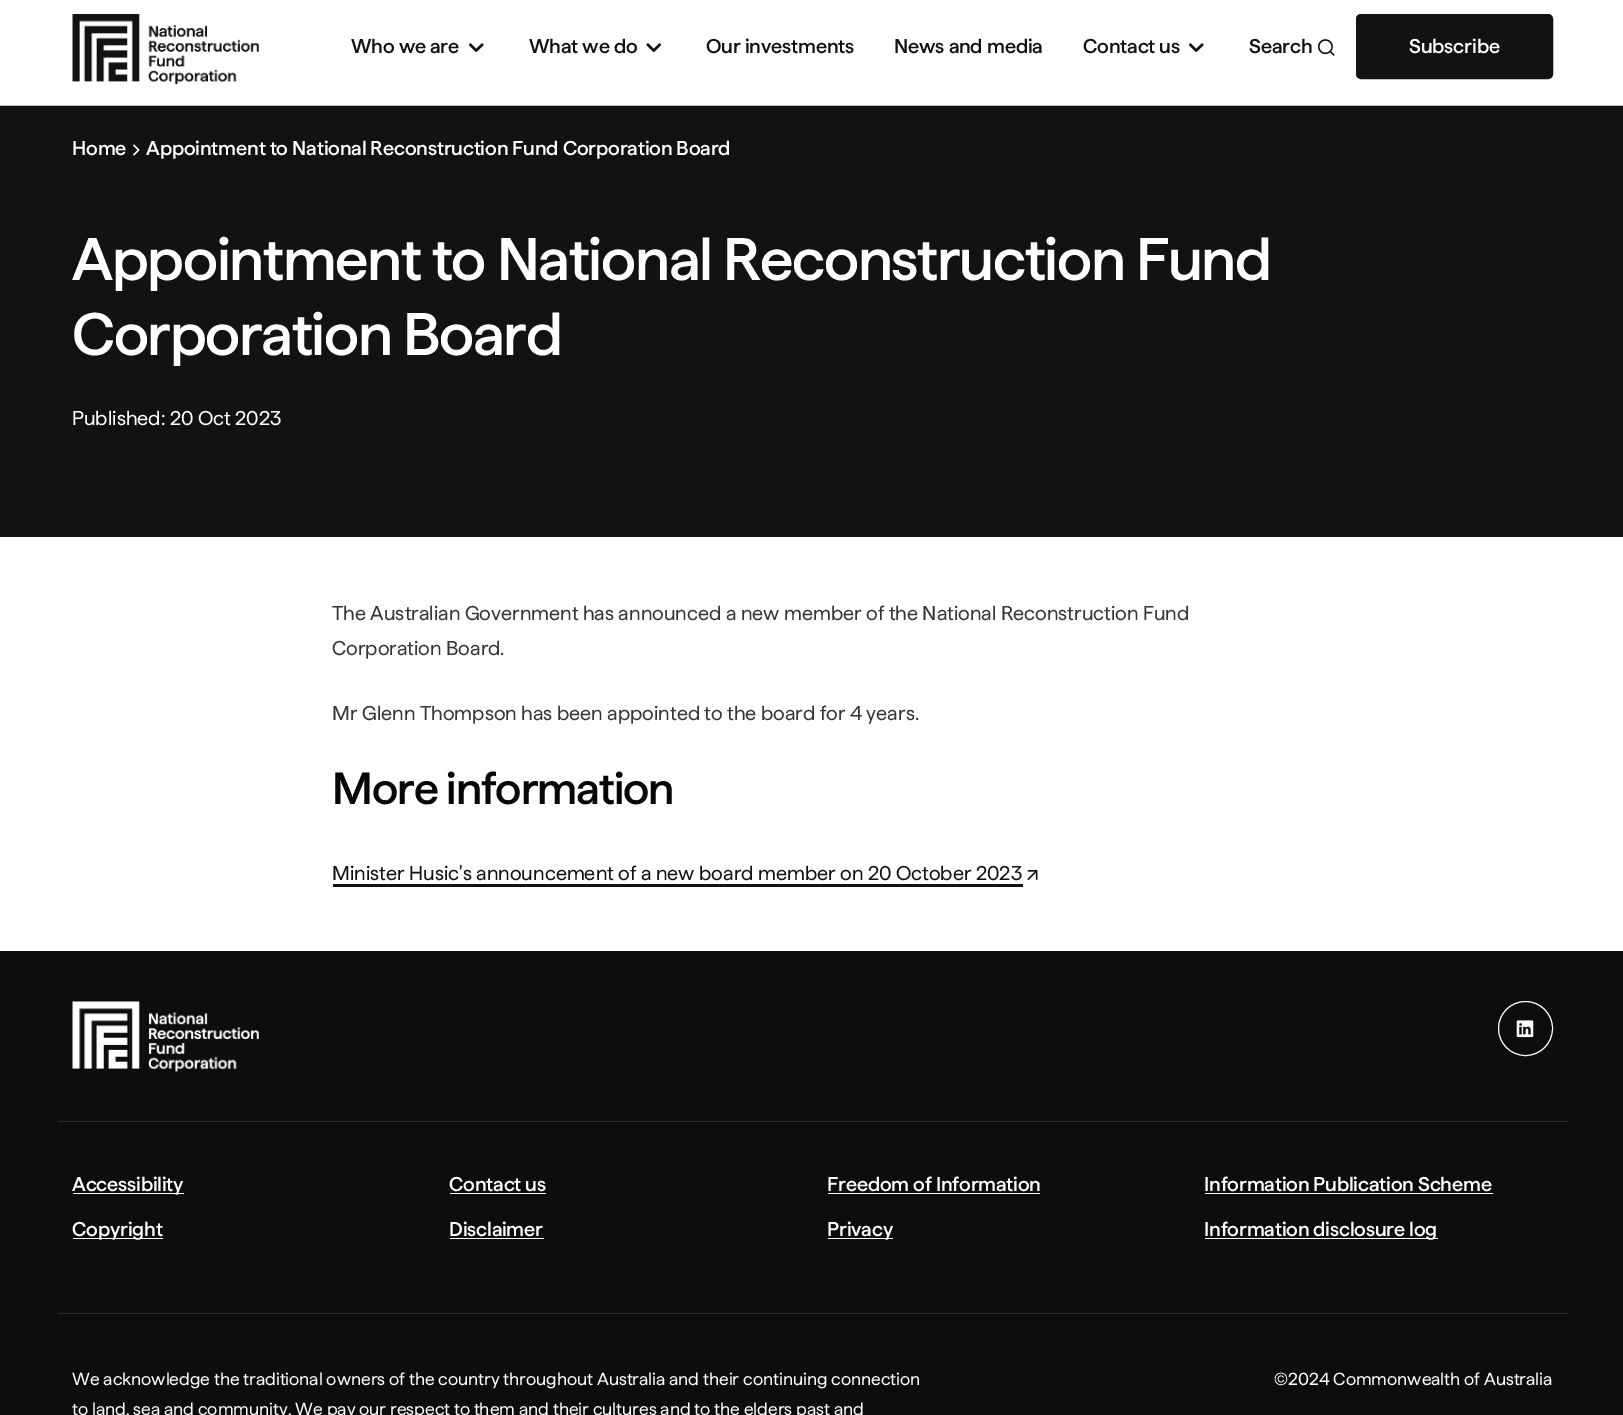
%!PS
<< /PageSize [1623 1415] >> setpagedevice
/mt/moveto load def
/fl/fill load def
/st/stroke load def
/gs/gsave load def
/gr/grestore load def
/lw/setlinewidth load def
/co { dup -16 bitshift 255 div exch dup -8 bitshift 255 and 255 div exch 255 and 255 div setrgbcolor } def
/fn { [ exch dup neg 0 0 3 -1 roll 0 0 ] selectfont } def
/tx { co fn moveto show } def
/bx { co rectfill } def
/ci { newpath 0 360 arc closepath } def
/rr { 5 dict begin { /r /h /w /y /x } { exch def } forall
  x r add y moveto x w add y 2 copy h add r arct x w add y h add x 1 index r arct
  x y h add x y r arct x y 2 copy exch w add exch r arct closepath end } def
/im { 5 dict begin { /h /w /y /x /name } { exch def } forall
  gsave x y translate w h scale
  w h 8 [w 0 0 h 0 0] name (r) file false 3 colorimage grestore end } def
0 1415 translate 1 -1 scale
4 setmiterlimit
0 0 1623 1415 16#FFFFFF bx
0 105 1623 1 16#BFBFBF bx
(media/1.raw) 72 14 187 70 im
(media/2.raw) 469 43 15 9 im
(media/3.raw) 646 43 15 9 im
(media/2.raw) 1189 43 15 9 im
(media/4.raw) 1317 39 18 17 im
16#121212 co
1357.5 15.5 194 62 3.5 rr gs fl gr
3 lw
st
0 106 1623 431 16#121212 bx
(media/5.raw) 133 144 7 12 im
333 884 690 3 16#121212 bx
(media/6.raw) 1027 870 11 10 im
0 951 1623 464 16#0D0D0D bx
58 1121 1510 1 16#2A2A2A bx
(media/7.raw) 72 1001 187 71 im
16#FFFFFF co
1 lw
1525.5 1028.5 27 ci st
(media/8.raw) 1516 1020 18 18 im
58 1313 1510 1 16#2A2A2A bx
73 1193 111 1 16#FFFFFF bx
73 1238 90 1 16#FFFFFF bx
450 1193 96 1 16#FFFFFF bx
450 1238 94 1 16#FFFFFF bx
828 1193 212 1 16#FFFFFF bx
828 1238 65 1 16#FFFFFF bx
1205 1193 288 1 16#FFFFFF bx
1205 1238 233 1 16#FFFFFF bx
/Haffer-Medium 20 fn
16#121212 co
351 53 mt -.12 0 (Who we are) ashow
529 53 mt -.12 0 (What we do) ashow
706 53 mt -.12 0 (Our investments) ashow
894 53 mt -.12 0 (News and media) ashow
1083 53 mt -.12 0 (Contact us) ashow
1249 53 mt -.12 0 (Search) ashow
16#FFFFFF co
1409 53 mt -.12 0 (Subscribe) ashow
72 155 mt -.12 0 (Home) ashow
146 155 mt -.12 0 (Appointment to National Reconstruction Fund Corporation Board) ashow
/Haffer-Medium 60 fn
72 280 mt -1.25 0 (Appointment to National Reconstruction Fund) ashow
72 355 mt -1.25 0 (Corporation Board) ashow
(Published: 20 Oct 2023) 72 425 /Haffer-Regular 20 16#FFFFFF tx
(The Australian Government has announced a new member of the National Reconstruction Fund) 332 620 /Haffer-Regular 20 16#363636 tx
(Corporation Board.) 332 655 /Haffer-Regular 20 16#363636 tx
(Mr Glenn Thompson has been appointed to the board for 4 years.) 332 720 /Haffer-Regular 20 16#363636 tx
/Haffer-Medium 45 fn
16#070707 co
332 804 mt -1 0 (More information) ashow
(Minister Husic's announcement of a new board member on 20 October 2023) 332 880 /Haffer-Regular 20 16#121212 tx
/Haffer-Medium 20 fn
16#FFFFFF co
72 1191 mt -.12 0 (Accessibility) ashow
72 1236 mt -.12 0 (Copyright) ashow
449 1191 mt -.12 0 (Contact us) ashow
449 1236 mt -.12 0 (Disclaimer) ashow
827 1191 mt -.12 0 (Freedom of Information) ashow
827 1236 mt -.12 0 (Privacy) ashow
1204 1191 mt -.12 0 (Information Publication Scheme) ashow
1204 1236 mt -.12 0 (Information disclosure log) ashow
(We acknowledge the traditional owners of the country throughout Australia and their continuing connection) 72 1385 /Haffer-Regular 17.5 16#FFFFFF tx
(to land, sea and community. We pay our respect to them and their cultures and to the elders past and) 72 1415 /Haffer-Regular 17.5 16#FFFFFF tx
(©2024 Commonwealth of Australia) 1274 1385 /Haffer-Regular 17.5 16#FFFFFF tx
showpage
